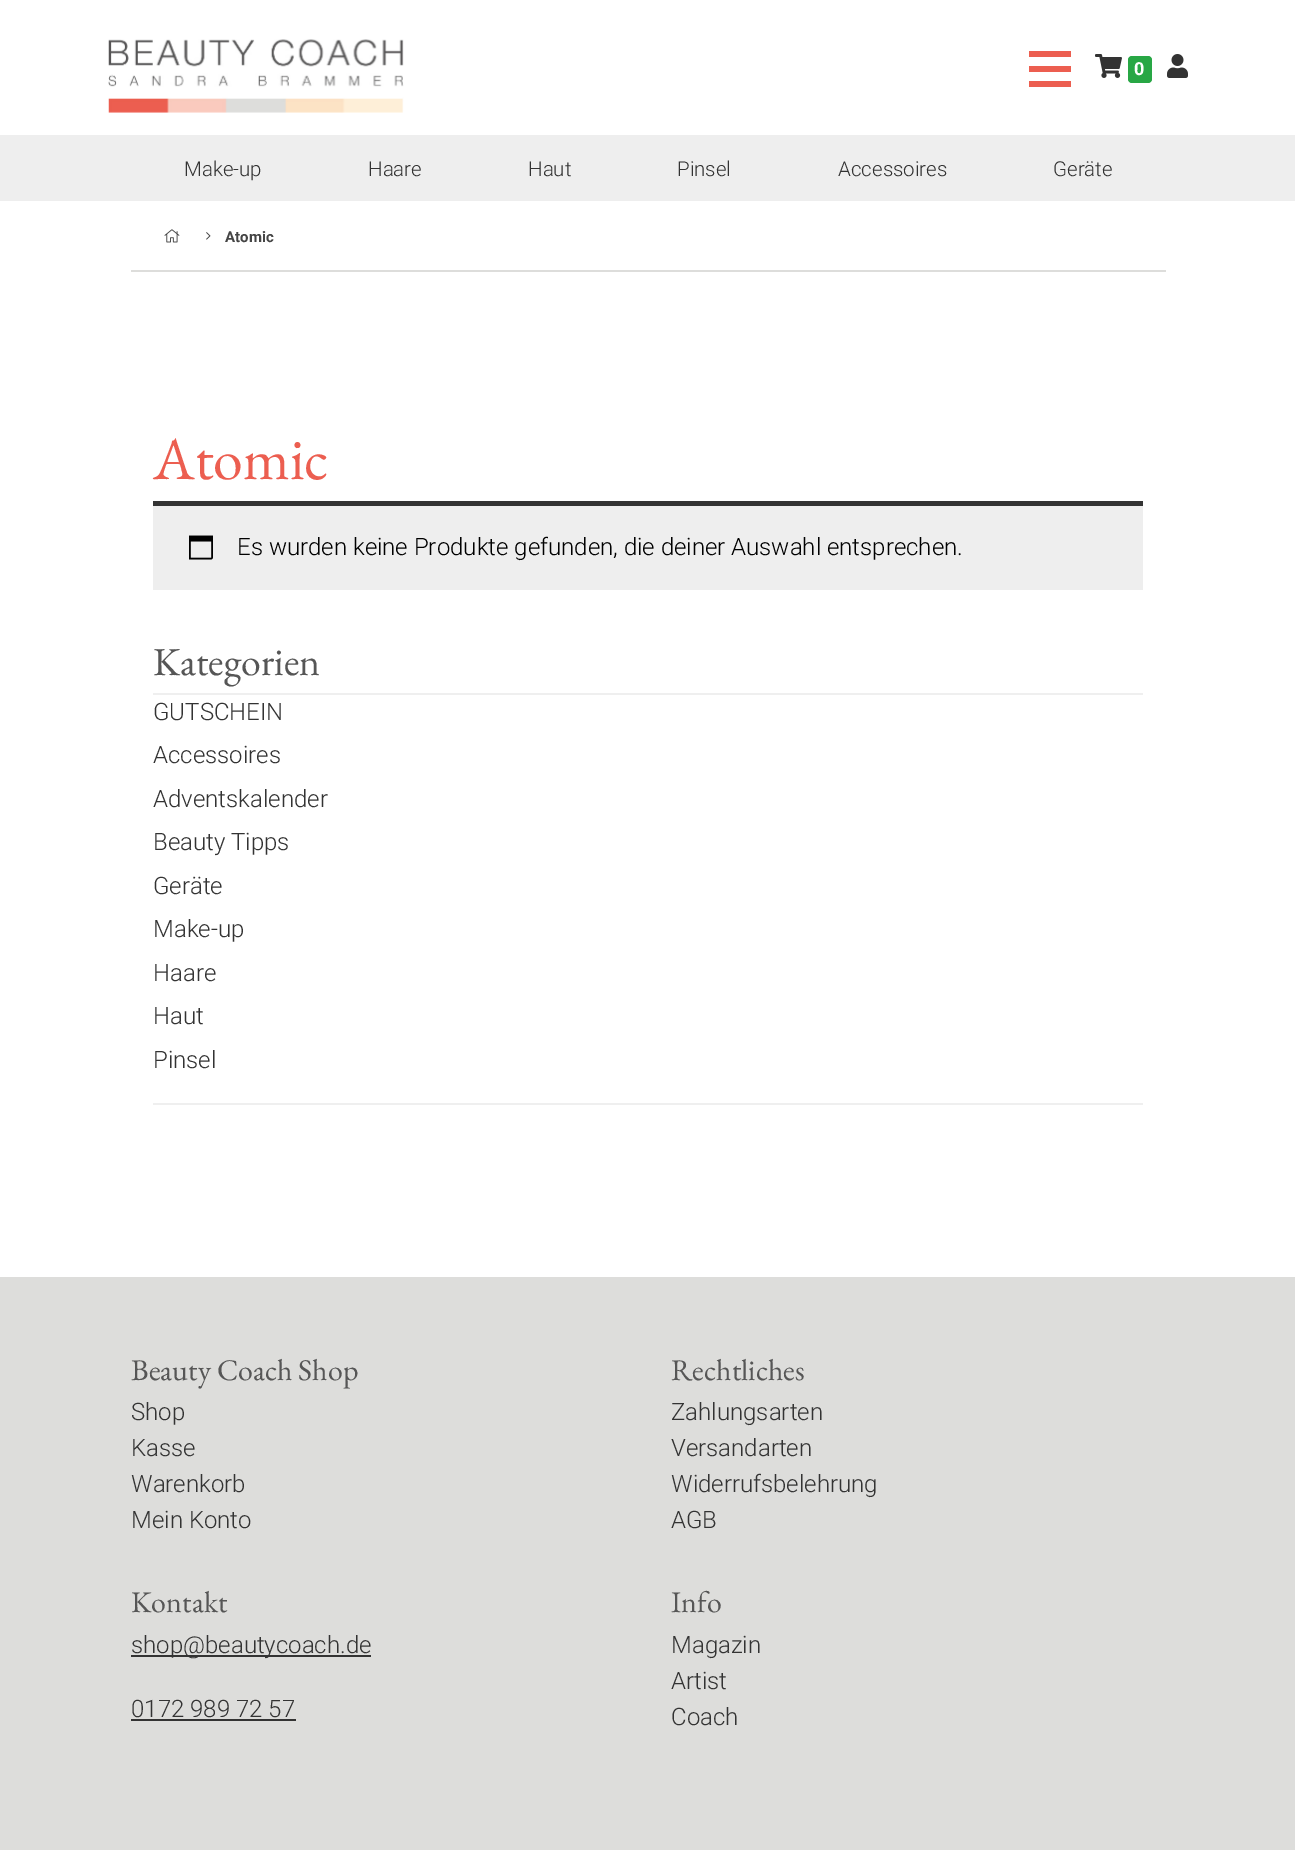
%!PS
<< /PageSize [1295 1850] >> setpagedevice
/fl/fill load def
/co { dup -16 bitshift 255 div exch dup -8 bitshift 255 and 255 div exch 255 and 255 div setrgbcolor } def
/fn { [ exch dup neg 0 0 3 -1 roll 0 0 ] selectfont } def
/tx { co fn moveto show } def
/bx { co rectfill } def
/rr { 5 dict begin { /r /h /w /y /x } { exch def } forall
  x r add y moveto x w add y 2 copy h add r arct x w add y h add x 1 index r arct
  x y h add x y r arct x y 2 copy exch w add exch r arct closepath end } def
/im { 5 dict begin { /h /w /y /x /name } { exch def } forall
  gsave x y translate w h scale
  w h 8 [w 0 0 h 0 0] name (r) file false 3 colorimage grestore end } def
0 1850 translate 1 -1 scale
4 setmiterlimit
0 0 1295 1850 16#FFFFFF bx
(media/1.raw) 108 39 296 74 im
1029 51 42 6 16#EC5E50 bx
1029 66 42 6 16#EC5E50 bx
1029 81 42 6 16#EC5E50 bx
(media/2.raw) 1095 54 27 24 im
16#28A745 co
1128 56 24 27 4 rr fl
(media/3.raw) 1167 54 21 24 im
0 135 1295 66 16#EEEEEE bx
131 270 1035 2 16#DDDDDB bx
(media/4.raw) 164 229 16 14 im
(media/5.raw) 206 232 5 8 im
153 506 990 84 16#EEEEEE bx
153 501 990 5 16#333333 bx
(media/6.raw) 189 535 24 25 im
153 693 990 2 16#EFEFEF bx
153 1103 990 2 16#EFEFEF bx
0 1277 1295 573 16#DDDDDB bx
131 1655 240 2 16#333333 bx
131 1719 165 2 16#333333 bx
(0) 1134 75 /Roboto-Bold 18 16#FFFFFF tx
(Make-up) 184 176 /Roboto-Light 20.5 16#333333 tx
(Haare) 368 176 /Roboto-Light 20.5 16#333333 tx
(Haut) 528 176 /Roboto-Light 20.5 16#333333 tx
(Pinsel) 677 176 /Roboto-Light 20.5 16#333333 tx
(Accessoires) 838 176 /Roboto-Light 20.5 16#333333 tx
(Geräte) 1053 176 /Roboto-Light 20.5 16#333333 tx
(Atomic) 225 242 /Roboto-Bold 15 16#454545 tx
(Atomic) 153 479 /EBGaramond-Regular 60 16#EC5E50 tx
(Es wurden keine Produkte gefunden, die deiner Auswahl entsprechen.) 237 555 /Roboto-Light 24 16#000000 tx
(Kategorien) 153 675 /EBGaramond-Regular 39.75 16#565656 tx
(GUTSCHEIN) 153 720 /Roboto-Light 24 16#333333 tx
(Accessoires) 153 763 /Roboto-Light 24 16#333333 tx
(Adventskalender) 153 807 /Roboto-Light 24 16#333333 tx
(Beauty Tipps) 153 850 /Roboto-Light 24 16#333333 tx
(Geräte) 153 894 /Roboto-Light 24 16#333333 tx
(Make-up) 153 937 /Roboto-Light 24 16#333333 tx
(Haare) 153 981 /Roboto-Light 24 16#333333 tx
(Haut) 153 1024 /Roboto-Light 24 16#333333 tx
(Pinsel) 153 1068 /Roboto-Light 24 16#333333 tx
(Beauty Coach Shop) 131 1380 /EBGaramond-Regular 30 16#565656 tx
(Shop) 131 1420 /Roboto-Light 24 16#333333 tx
(Kasse) 131 1456 /Roboto-Light 24 16#333333 tx
(Warenkorb) 131 1492 /Roboto-Light 24 16#333333 tx
(Mein Konto) 131 1528 /Roboto-Light 24 16#333333 tx
(Rechtliches) 671 1380 /EBGaramond-Regular 30 16#565656 tx
(Zahlungsarten) 671 1420 /Roboto-Light 24 16#333333 tx
(Versandarten) 671 1456 /Roboto-Light 24 16#333333 tx
(Widerrufsbelehrung) 671 1492 /Roboto-Light 24 16#333333 tx
(AGB) 671 1528 /Roboto-Light 24 16#333333 tx
(Kontakt) 131 1612 /EBGaramond-Regular 30 16#565656 tx
(shop@beautycoach.de) 131 1653 /Roboto-Light 24 16#333333 tx
(0172 989 72 57) 131 1717 /Roboto-Light 24 16#333333 tx
(Info) 671 1612 /EBGaramond-Regular 30 16#565656 tx
(Magazin) 671 1653 /Roboto-Light 24 16#333333 tx
(Artist) 671 1689 /Roboto-Light 24 16#333333 tx
(Coach) 671 1725 /Roboto-Light 24 16#333333 tx
showpage
